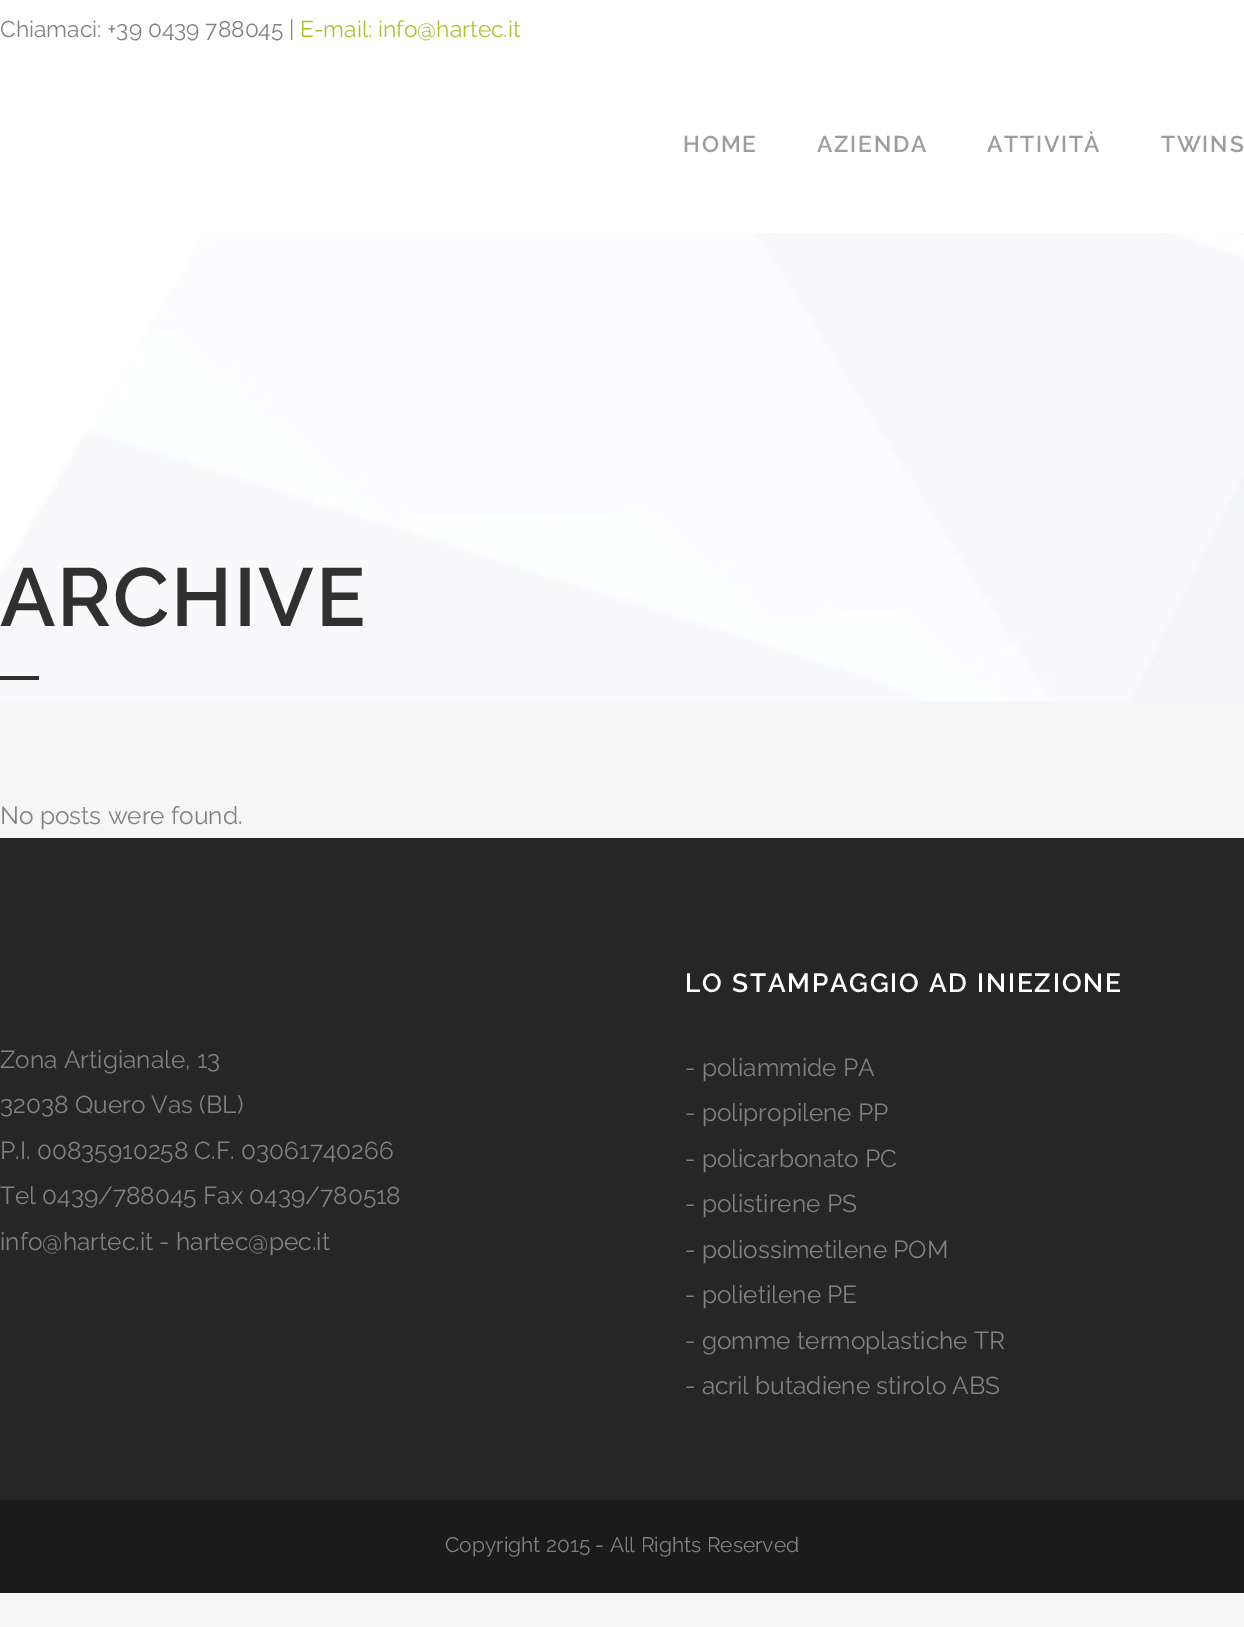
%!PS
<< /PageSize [1244 1627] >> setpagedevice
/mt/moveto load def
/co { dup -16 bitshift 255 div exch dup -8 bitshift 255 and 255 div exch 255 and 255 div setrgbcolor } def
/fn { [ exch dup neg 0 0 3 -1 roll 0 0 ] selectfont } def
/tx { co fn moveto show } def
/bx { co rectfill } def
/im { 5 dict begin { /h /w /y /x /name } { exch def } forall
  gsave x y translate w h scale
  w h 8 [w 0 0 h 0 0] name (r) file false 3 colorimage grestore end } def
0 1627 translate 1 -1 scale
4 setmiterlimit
0 0 1244 1627 16#F6F6F6 bx
0 0 1244 233 16#FFFFFF bx
(media/1.raw) 0 233 1244 469 im
0 676 39 4 16#303030 bx
0 838 1244 662 16#262626 bx
0 1500 1244 93 16#1B1B1B bx
(Chiamaci: +39 0439 788045 |) 0 37 /Raleway-Regular 22.75 16#818181 tx
(E-mail: info@hartec.it) 300 37 /Raleway-Regular 22.75 16#B1BF2C tx
/Raleway-SemiBold 22.75 fn
16#9D9D9D co
683 152 mt 1.75 0 (HOME) ashow
817 152 mt 1.75 0 (AZIENDA) ashow
987 152 mt 1.75 0 (ATTIVITÀ) ashow
1161 152 mt 1.75 0 (TWINS) ashow
/Raleway-SemiBold 82.25 fn
16#303030 co
0 626 mt 1.75 0 (ARCHIVE) ashow
(No posts were found.) 0 824 /Raleway-Regular 24.5 16#818181 tx
(Zona Artigianale, 13) 0 1068 /Raleway-Regular 24.5 16#818181 tx
(32038 Quero Vas \(BL\)) 0 1113 /Raleway-Regular 24.5 16#818181 tx
(P.I. 00835910258 C.F. 03061740266) 0 1159 /Raleway-Regular 24.5 16#818181 tx
(Tel 0439/788045 Fax 0439/780518) 0 1204 /Raleway-Regular 24.5 16#818181 tx
(info@hartec.it - hartec@pec.it) 0 1250 /Raleway-Regular 24.5 16#818181 tx
/Raleway-SemiBold 26.25 fn
16#FFFFFF co
685 992 mt 1.75 0 (LO STAMPAGGIO AD INIEZIONE) ashow
(- poliammide PA) 685 1076 /Raleway-Regular 24.5 16#818181 tx
(- polipropilene PP) 685 1121 /Raleway-Regular 24.5 16#818181 tx
(- policarbonato PC) 685 1167 /Raleway-Regular 24.5 16#818181 tx
(- polistirene PS) 685 1212 /Raleway-Regular 24.5 16#818181 tx
(- poliossimetilene POM) 685 1258 /Raleway-Regular 24.5 16#818181 tx
(- polietilene PE) 685 1303 /Raleway-Regular 24.5 16#818181 tx
(- gomme termoplastiche TR) 685 1349 /Raleway-Regular 24.5 16#818181 tx
(- acril butadiene stirolo ABS) 685 1394 /Raleway-Regular 24.5 16#818181 tx
(Copyright 2015 - All Rights Reserved) 445 1552 /Raleway-Regular 21 16#818181 tx
showpage
